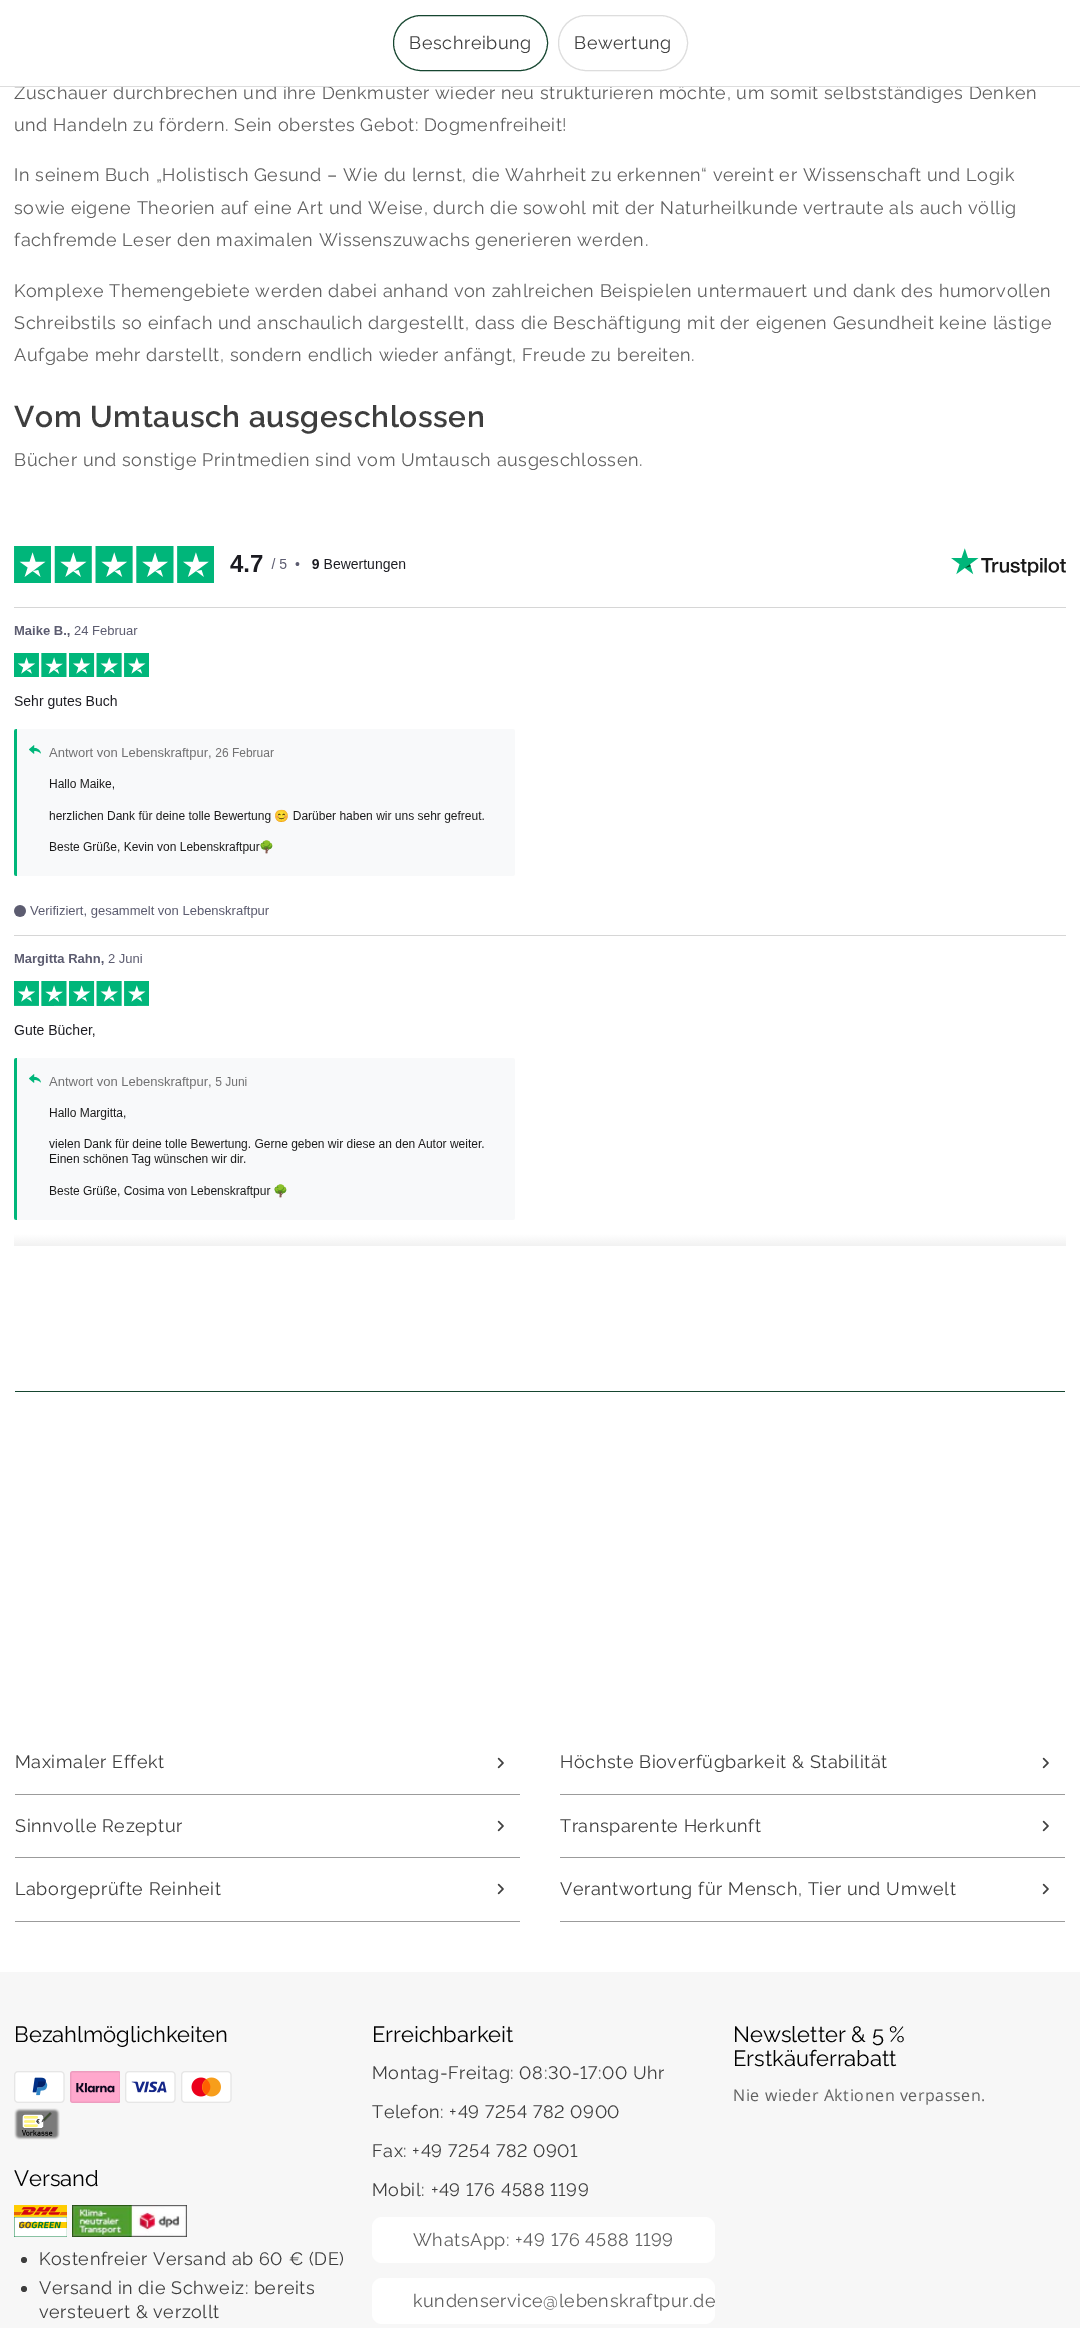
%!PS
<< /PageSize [1080 2328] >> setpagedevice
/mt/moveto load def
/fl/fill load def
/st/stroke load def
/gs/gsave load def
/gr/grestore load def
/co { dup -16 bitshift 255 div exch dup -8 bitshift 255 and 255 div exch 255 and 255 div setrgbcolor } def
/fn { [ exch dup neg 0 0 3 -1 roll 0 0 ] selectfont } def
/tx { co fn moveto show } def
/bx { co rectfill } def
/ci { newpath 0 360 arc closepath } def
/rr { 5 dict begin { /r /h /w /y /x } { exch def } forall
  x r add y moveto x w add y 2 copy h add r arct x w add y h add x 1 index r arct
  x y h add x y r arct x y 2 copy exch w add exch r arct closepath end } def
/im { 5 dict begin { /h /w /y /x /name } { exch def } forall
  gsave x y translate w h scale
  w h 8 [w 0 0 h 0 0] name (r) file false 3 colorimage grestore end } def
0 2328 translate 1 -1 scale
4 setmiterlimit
0 0 1080 2328 16#FFFFFF bx
16#164630 co
393.5 15.5 154 55 27.5 rr st
16#DDDDDD co
558.5 15.5 129 55 27.5 rr st
(media/1.raw) 14 546 1052 700 im
15 1391 1050 1 16#164630 bx
15 1794 505 1 16#9B9B9B bx
(media/2.raw) 497 1757 7 12 im
15 1857 505 1 16#9B9B9B bx
(media/2.raw) 497 1820 7 12 im
15 1921 505 1 16#9B9B9B bx
(media/2.raw) 497 1883 7 12 im
560 1794 505 1 16#9B9B9B bx
(media/2.raw) 1042 1757 7 12 im
560 1857 505 1 16#9B9B9B bx
(media/2.raw) 1042 1820 7 12 im
560 1921 505 1 16#9B9B9B bx
(media/2.raw) 1042 1883 7 12 im
0 1972 1080 356 16#F7F7F7 bx
(media/3.raw) 14 2071 51 32 im
(media/4.raw) 70 2071 50 32 im
(media/5.raw) 125 2071 51 32 im
(media/6.raw) 181 2071 51 32 im
(media/7.raw) 14 2108 46 32 im
16#FFFFFF co
372 2217 343 46 10 rr fl
372 2278 343 46 10 rr fl
(media/8.raw) 14 2205 53 32 im
(media/9.raw) 72 2205 115 32 im
16#3E3E3E co
24 2260 3 ci fl
24 2289 3 ci fl
/Raleway-Regular 18 fn
409 49 mt .6 0 (Beschreibung) ashow
574 49 mt .6 0 (Bewertung) ashow
16#5F5F5F co
14 99 mt .6 0 (Zuschauer durchbrechen und ihre Denkmuster wieder neu strukturieren möchte, um somit selbstständiges Denken) ashow
0 86 1080 1 16#DDDDDD bx
58 85 950 1 16#FFFFFF bx
16#5F5F5F co
14 131 mt .6 0 (und Handeln zu fördern. Sein oberstes Gebot: Dogmenfreiheit!) ashow
14 181 mt .6 0 (In seinem Buch „Holistisch Gesund – Wie du lernst, die Wahrheit zu erkennen“ vereint er Wissenschaft und Logik) ashow
14 214 mt .6 0 (sowie eigene Theorien auf eine Art und Weise, durch die sowohl mit der Naturheilkunde vertraute als auch völlig) ashow
14 246 mt .6 0 (fachfremde Leser den maximalen Wissenszuwachs generieren werden.) ashow
14 297 mt .6 0 (Komplexe Themengebiete werden dabei anhand von zahlreichen Beispielen untermauert und dank des humorvollen) ashow
14 329 mt .6 0 (Schreibstils so einfach und anschaulich dargestellt, dass die Beschäftigung mit der eigenen Gesundheit keine lästige) ashow
14 361 mt .6 0 (Aufgabe mehr darstellt, sondern endlich wieder anfängt, Freude zu bereiten.) ashow
/Raleway-SemiBold 30 fn
16#3E3E3E co
14 427 mt .6 0 (Vom Umtausch ausgeschlossen) ashow
/Raleway-Regular 18 fn
16#5F5F5F co
14 466 mt .6 0 (Bücher und sonstige Printmedien sind vom Umtausch ausgeschlossen.) ashow
16#3E3E3E co
15 1768 mt .6 0 (Maximaler Effekt) ashow
15 1832 mt .6 0 (Sinnvolle Rezeptur) ashow
15 1895 mt .6 0 (Laborgeprüfte Reinheit) ashow
560 1768 mt .6 0 (Höchste Bioverfügbarkeit & Stabilität) ashow
560 1832 mt .6 0 (Transparente Herkunft) ashow
560 1895 mt .6 0 (Verantwortung für Mensch, Tier und Umwelt) ashow
(Bezahlmöglichkeiten) 14 2042 /Raleway-Regular 22 16#000000 tx
(Erreichbarkeit) 372 2042 /Raleway-Regular 22 16#000000 tx
/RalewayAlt-Regular 18 fn
16#3E3E3E co
372 2079 mt .6 0 (Montag-Freitag: 08:30-17:00 Uhr) ashow
372 2118 mt .6 0 (Telefon: +49 7254 782 0900) ashow
372 2157 mt .6 0 (Fax: +49 7254 782 0901) ashow
372 2196 mt .6 0 (Mobil: +49 176 4588 1199) ashow
16#5F5F5F co
413 2246 mt .6 0 (WhatsApp: +49 176 4588 1199) ashow
gs
372 2061 343 263 rectclip
/Raleway-Regular 18 fn
413 2307 mt .6 0 (kundenservice@lebenskraftpur.de) ashow
gr
(Newsletter & 5 %) 733 2042 /Raleway-Regular 22 16#000000 tx
(Erstkäuferrabatt) 733 2066 /Raleway-Regular 22 16#000000 tx
/OpenSans-Regular 16 fn
16#5F5F5F co
733 2101 mt .6 0 (Nie wieder Aktionen verpassen.) ashow
(Versand) 14 2186 /Raleway-Regular 22 16#000000 tx
/RalewayAlt-Regular 18 fn
16#3E3E3E co
39 2265 mt .6 0 (Kostenfreier Versand ab 60 € \(DE\)) ashow
/Raleway-Regular 18 fn
39 2294 mt .6 0 (Versand in die Schweiz: bereits) ashow
39 2318 mt .6 0 (versteuert & verzollt) ashow
showpage
